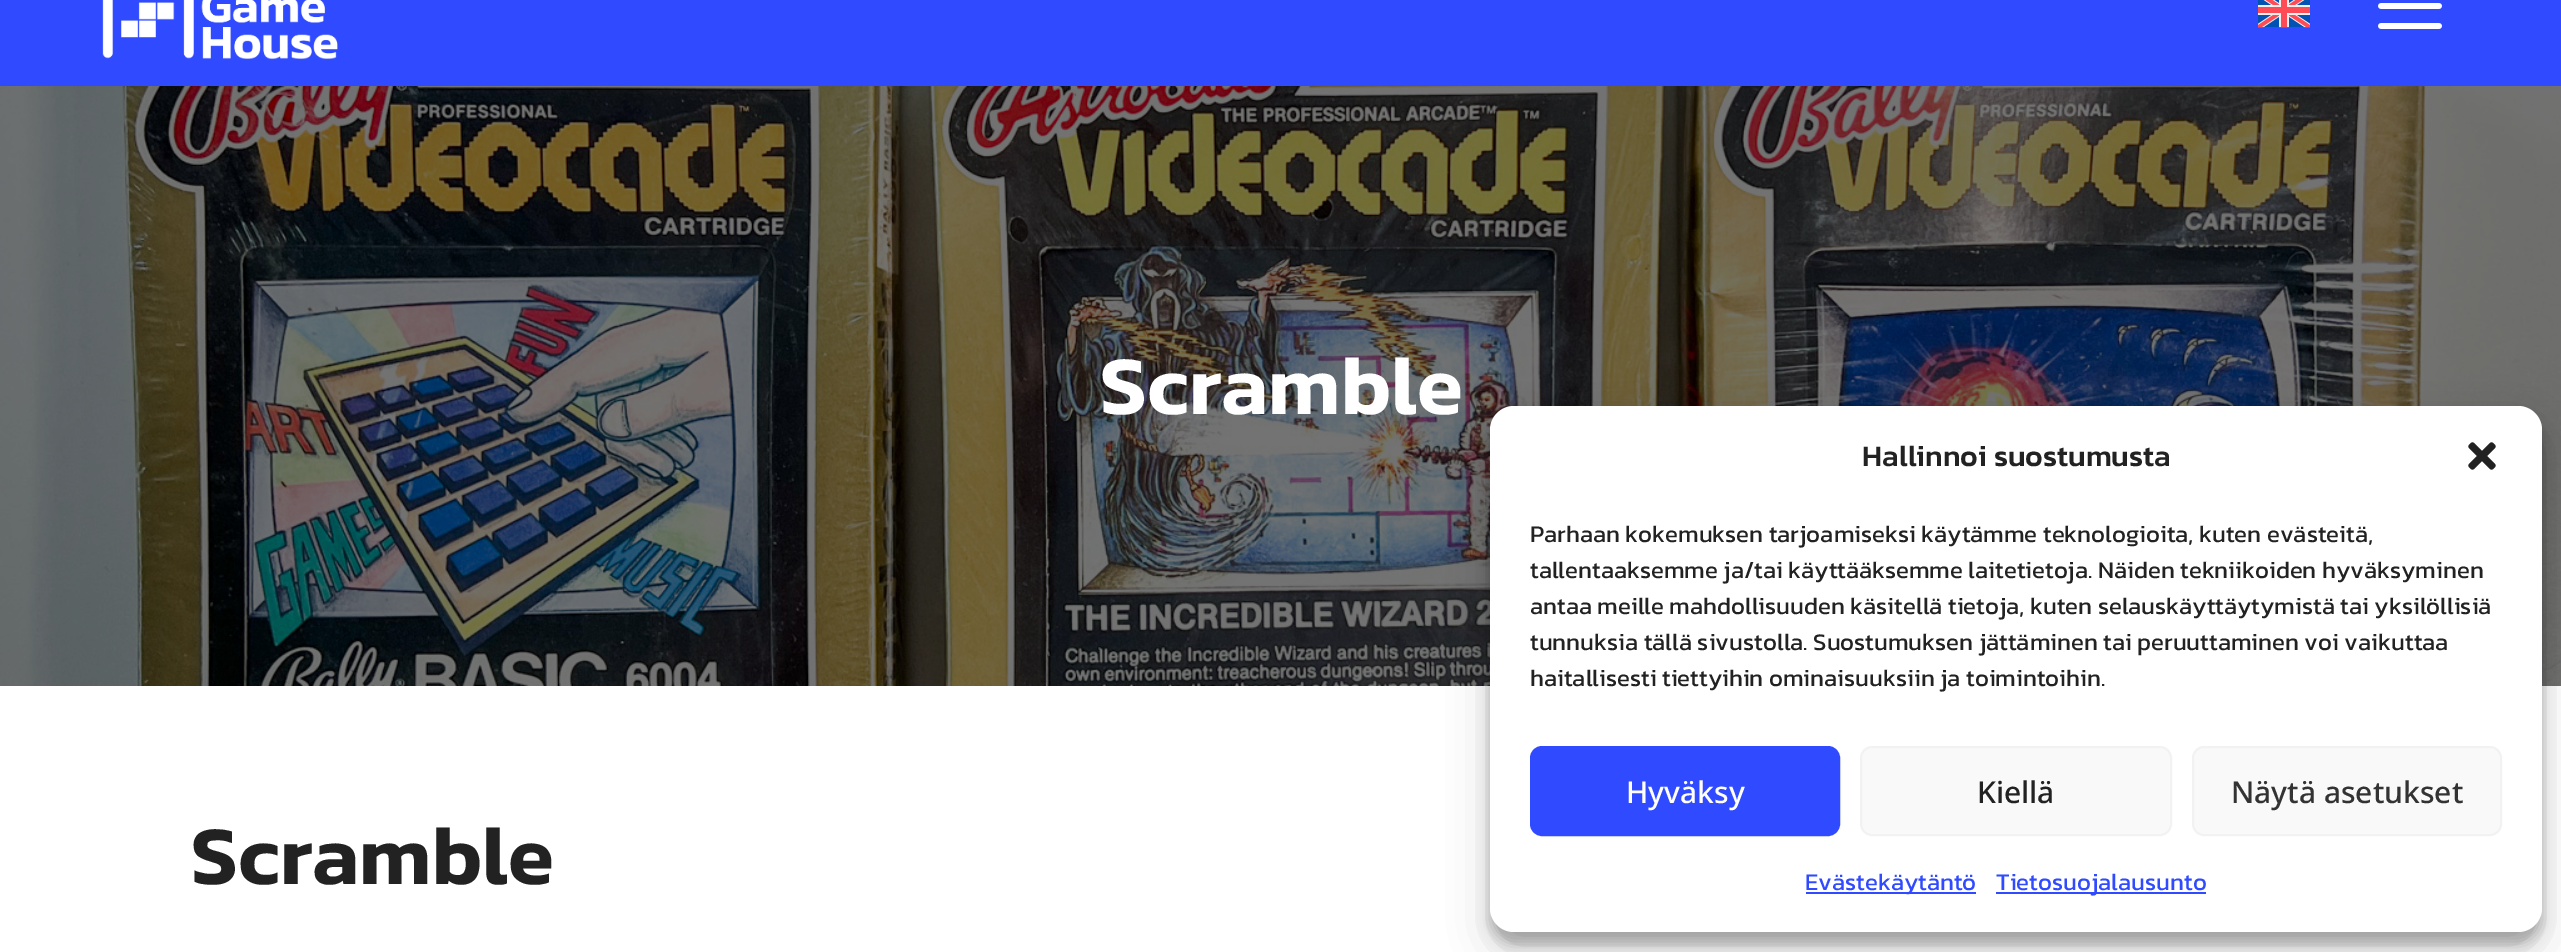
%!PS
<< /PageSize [2561 952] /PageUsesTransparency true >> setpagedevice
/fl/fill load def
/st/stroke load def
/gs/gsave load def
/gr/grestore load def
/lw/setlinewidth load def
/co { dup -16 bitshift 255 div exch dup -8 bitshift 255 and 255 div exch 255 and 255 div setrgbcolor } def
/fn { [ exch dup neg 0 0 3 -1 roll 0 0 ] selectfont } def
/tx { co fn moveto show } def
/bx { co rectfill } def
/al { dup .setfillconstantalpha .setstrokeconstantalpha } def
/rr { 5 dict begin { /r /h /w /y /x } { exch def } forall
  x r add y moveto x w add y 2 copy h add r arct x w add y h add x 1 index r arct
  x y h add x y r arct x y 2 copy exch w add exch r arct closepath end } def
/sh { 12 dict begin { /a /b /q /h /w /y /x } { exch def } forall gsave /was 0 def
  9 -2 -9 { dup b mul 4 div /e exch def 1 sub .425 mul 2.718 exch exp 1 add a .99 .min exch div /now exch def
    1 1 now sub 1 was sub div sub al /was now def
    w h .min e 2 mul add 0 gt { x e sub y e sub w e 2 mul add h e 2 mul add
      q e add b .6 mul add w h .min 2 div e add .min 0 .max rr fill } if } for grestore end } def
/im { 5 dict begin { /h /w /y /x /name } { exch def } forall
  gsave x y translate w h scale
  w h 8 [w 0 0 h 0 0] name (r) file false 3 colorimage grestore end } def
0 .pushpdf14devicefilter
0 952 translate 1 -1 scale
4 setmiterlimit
0 0 2561 952 16#FFFFFF bx
0 0 2561 86 16#304BFF bx
(media/1.raw) 102 0 236 60 im
(media/2.raw) 2378 3 64 26 im
(media/3.raw) 2258 0 52 28 im
(media/4.raw) 0 86 2561 600 im
16#000000 co
1490 418 1052 526 24 6 .23 sh
1490 426 1052 526 24 20 .19 sh
16#FFFFFF co
1490 406 1052 526 24 rr fl
(media/5.raw) 2468 442 28 28 im
16#304BFF co
1531 747 308 88 11 rr gs fl gr
2 lw
st
16#F9F9F9 co
1861 747 310 88 11 rr gs fl gr
16#F2F2F2 co
st
16#F9F9F9 co
2193 747 308 88 11 rr gs fl gr
16#F2F2F2 co
st
1806 892 170 2 16#304BFF bx
1996 892 210 2 16#304BFF bx
(Scramble) 1100 414 /Kanit-SemiBold 84 16#FFFFFF tx
(Scramble) 191 884 /Kanit-SemiBold 84 16#222222 tx
(Hallinnoi suostumusta) 1862 466 /Kanit-Medium 30 16#222222 tx
(Parhaan kokemuksen tarjoamiseksi käytämme teknologioita, kuten evästeitä,) 1530 542 /Kanit-Regular 24 16#222222 tx
(tallentaaksemme ja/tai käyttääksemme laitetietoja. Näiden tekniikoiden hyväksyminen) 1530 578 /Kanit-Regular 24 16#222222 tx
(antaa meille mahdollisuuden käsitellä tietoja, kuten selauskäyttäytymistä tai yksilöllisiä) 1530 614 /Kanit-Regular 24 16#222222 tx
(tunnuksia tällä sivustolla. Suostumuksen jättäminen tai peruuttaminen voi vaikuttaa) 1530 650 /Kanit-Regular 24 16#222222 tx
(haitallisesti tiettyihin ominaisuuksiin ja toimintoihin.) 1530 686 /Kanit-Regular 24 16#222222 tx
(Hyväksy) 1626 803 /NotoSans-Medium 30 16#FFFFFF tx
(Kiellä) 1977 803 /NotoSans-Medium 30 16#222222 tx
(Näytä asetukset) 2231 803 /NotoSans-Medium 30 16#333333 tx
(Evästekäytäntö) 1805 890 /Kanit-Regular 24 16#304BFF tx
(Tietosuojalausunto) 1996 890 /Kanit-Regular 24 16#304BFF tx
.poppdf14devicefilter showpage
